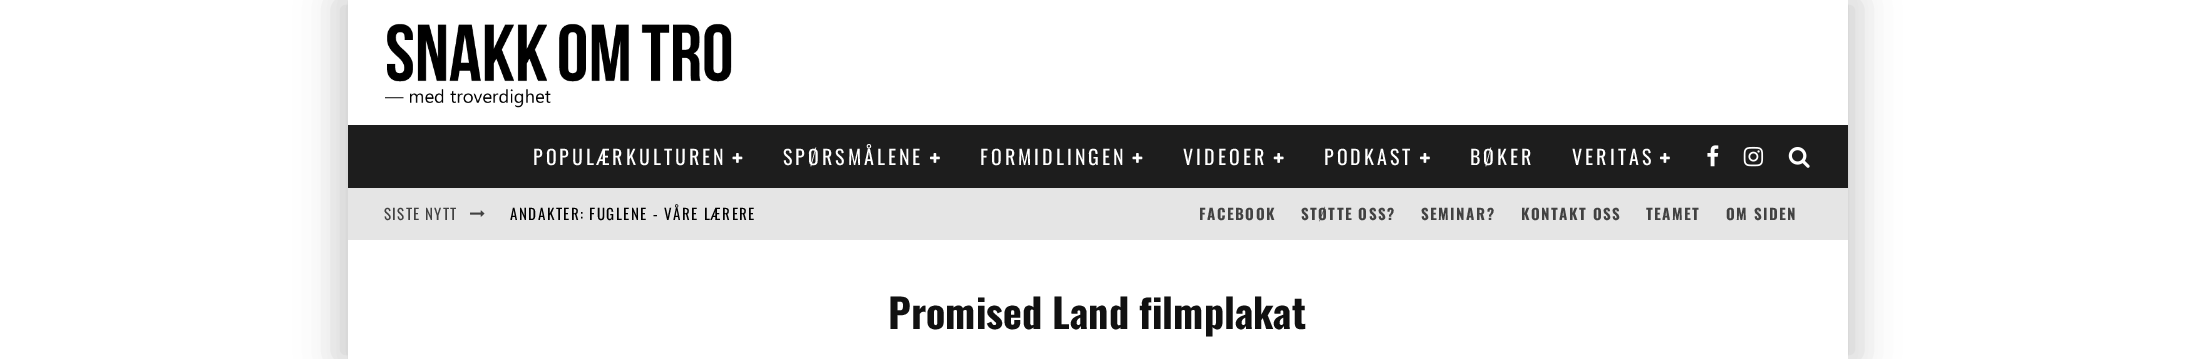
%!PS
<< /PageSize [2193 359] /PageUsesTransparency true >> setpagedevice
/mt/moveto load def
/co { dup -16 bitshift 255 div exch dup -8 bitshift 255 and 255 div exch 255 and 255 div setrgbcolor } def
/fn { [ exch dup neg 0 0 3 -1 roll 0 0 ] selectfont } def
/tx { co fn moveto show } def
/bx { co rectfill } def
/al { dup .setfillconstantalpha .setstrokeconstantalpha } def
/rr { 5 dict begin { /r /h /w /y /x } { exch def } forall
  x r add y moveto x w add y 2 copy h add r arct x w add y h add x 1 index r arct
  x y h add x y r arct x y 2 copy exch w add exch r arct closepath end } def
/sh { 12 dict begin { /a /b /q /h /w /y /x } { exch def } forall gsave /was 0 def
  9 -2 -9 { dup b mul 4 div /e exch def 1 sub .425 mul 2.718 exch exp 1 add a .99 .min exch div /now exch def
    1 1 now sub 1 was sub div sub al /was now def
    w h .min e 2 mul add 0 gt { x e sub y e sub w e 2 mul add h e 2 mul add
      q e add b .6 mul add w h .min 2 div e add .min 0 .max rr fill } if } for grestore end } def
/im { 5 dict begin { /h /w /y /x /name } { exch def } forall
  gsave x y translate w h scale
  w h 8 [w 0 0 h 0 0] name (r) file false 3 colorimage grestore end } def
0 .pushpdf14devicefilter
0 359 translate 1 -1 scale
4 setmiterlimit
0 0 2193 359 16#FFFFFF bx
16#000000 co
335 0 1500 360 0 19 .15 sh
360 0 1500 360 0 19 .15 sh
348 0 1500 125 16#FFFFFF bx
(media/1.raw) 385 23 347 85 im
348 125 1500 63 16#1D1D1D bx
(media/2.raw) 732 153 11 10 im
(media/3.raw) 930 153 10 10 im
(media/2.raw) 1132 153 11 10 im
(media/4.raw) 1273 153 11 10 im
(media/3.raw) 1420 153 10 10 im
(media/3.raw) 1660 153 10 10 im
(media/5.raw) 1707 145 12 22 im
(media/6.raw) 1743 146 21 21 im
(media/7.raw) 1788 147 22 21 im
348 188 1500 52 16#E5E5E5 bx
(media/8.raw) 470 210 15 7 im
348 240 1500 119 16#FFFFFF bx
/Oswald-Regular 20 fn
533 165 mt 3 0 (POPULÆRKULTUREN) ashow
783 165 mt 3 0 (SPØRSMÅLENE) ashow
980 165 mt 3 0 (FORMIDLINGEN) ashow
1183 165 mt 3 0 (VIDEOER) ashow
1324 165 mt 3 0 (PODKAST) ashow
1470 165 mt 3 0 (BØKER) ashow
1572 165 mt 3 0 (VERITAS) ashow
/Oswald-Regular 15 fn
16#424242 co
384 220 mt 1.25 0 (SISTE NYTT) ashow
16#000000 co
510 220 mt 1.5 0 (ANDAKTER: FUGLENE - VÅRE LÆRERE) ashow
/Oswald-Bold 15 fn
16#424242 co
1199 220 mt 1.5 0 (FACEBOOK) ashow
1301 220 mt 1.5 0 (STØTTE OSS?) ashow
1421 220 mt 1.5 0 (SEMINAR?) ashow
1521 220 mt 1.5 0 (KONTAKT OSS) ashow
1646 220 mt 1.5 0 (TEAMET) ashow
1726 220 mt 1.5 0 (OM SIDEN) ashow
(Promised Land filmplakat) 888 329 /Oswald-Bold 40 16#111111 tx
.poppdf14devicefilter showpage
